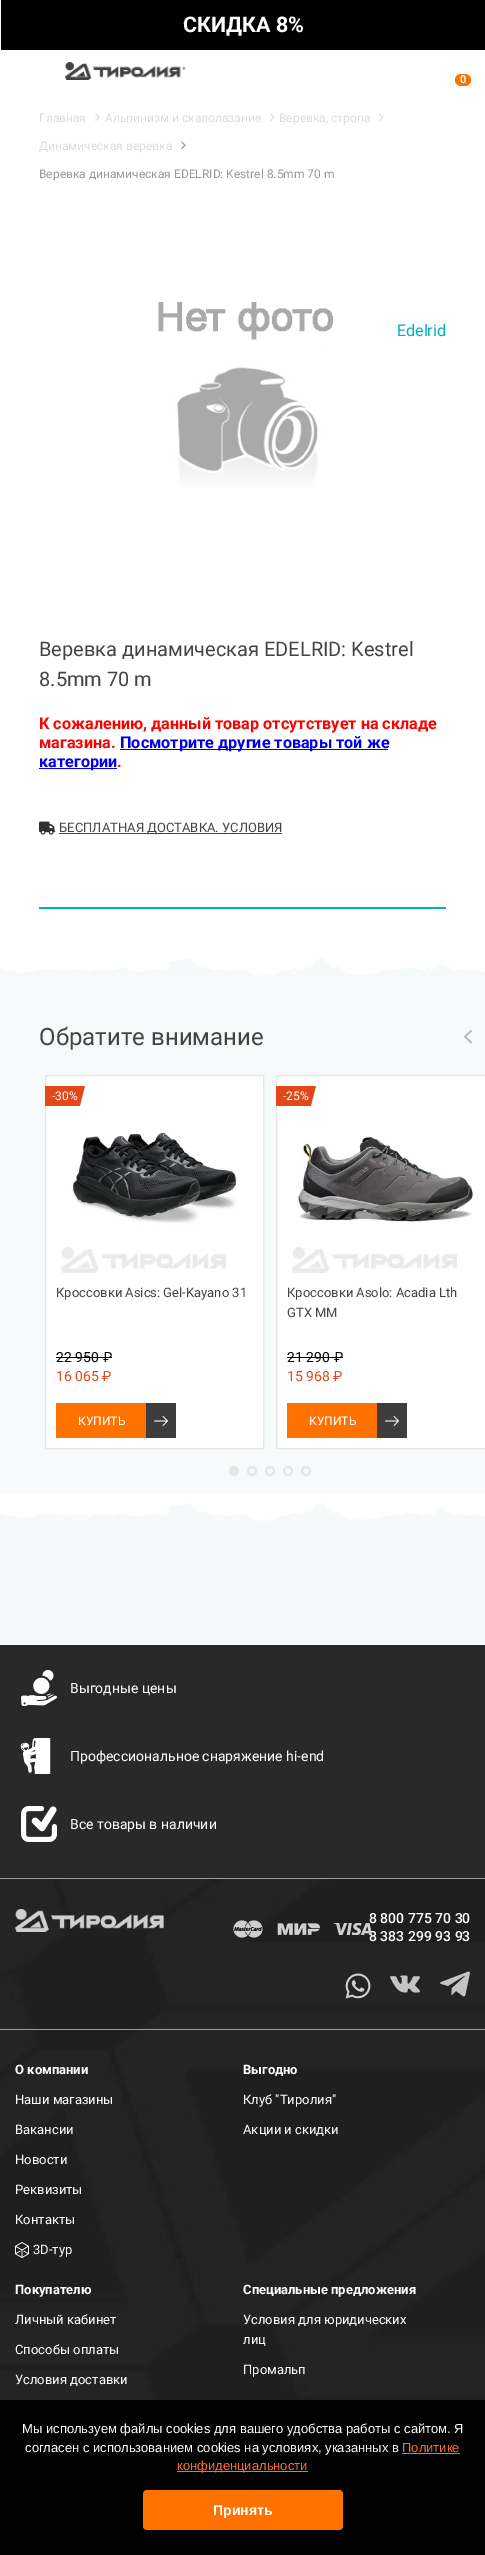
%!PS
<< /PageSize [485 2555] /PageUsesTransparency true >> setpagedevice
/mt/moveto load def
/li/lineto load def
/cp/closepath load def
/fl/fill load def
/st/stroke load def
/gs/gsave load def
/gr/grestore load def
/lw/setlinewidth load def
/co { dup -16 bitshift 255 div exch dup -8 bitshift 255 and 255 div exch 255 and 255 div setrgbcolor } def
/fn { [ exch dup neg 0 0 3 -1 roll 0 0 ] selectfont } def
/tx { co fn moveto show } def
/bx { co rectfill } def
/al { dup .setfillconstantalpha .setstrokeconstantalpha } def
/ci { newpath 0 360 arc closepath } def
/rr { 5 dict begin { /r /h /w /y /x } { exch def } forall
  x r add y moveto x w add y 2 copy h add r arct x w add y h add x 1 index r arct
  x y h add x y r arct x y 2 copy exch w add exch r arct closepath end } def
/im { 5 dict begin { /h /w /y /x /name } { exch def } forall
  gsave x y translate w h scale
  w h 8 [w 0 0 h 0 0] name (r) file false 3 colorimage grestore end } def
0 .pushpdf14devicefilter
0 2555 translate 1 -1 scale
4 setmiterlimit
0 0 485 2555 16#FFFFFF bx
1 0 484 50 16#000000 bx
(media/1.raw) 65 62 121 18 im
16#FF7200 co
455 74 16 12 6 rr fl
(media/2.raw) 95 113 5 8 im
(media/2.raw) 270 113 5 8 im
(media/2.raw) 379 113 5 8 im
(media/3.raw) 181 141 5 8 im
(media/4.raw) 158 302 175 186 im
120 749 268 1 16#0000EE bx
39 768 78 1 16#0000EE bx
(media/5.raw) 39 821 17 14 im
59 833 223 1 16#444444 bx
39 907 407 2 16#00B1C1 bx
0 976 485 518 16#F7FAFA bx
(media/6.raw) 0 949 485 27 im
(media/7.raw) 464 1030 8 14 im
16#FFFFFF co
45.5 1075.5 mt 263.5 1075.5 li 263.5 1448.5 li 45.5 1448.5 li cp gs fl gr
16#E6E6E6 co
st
(media/8.raw) 45 1086 40 20 im
(media/9.raw) 61 1132 177 141 im
56 1357 47 1 16#000000 bx
103 1357 9 1 16#000000 bx
56 1403 90 35 16#FF7200 bx
146 1403 30 35 16#3D3D3D bx
(media/10.raw) 154 1416 14 10 im
16#FFFFFF co
276.5 1075.5 mt 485.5 1075.5 li 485.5 1448.5 li 276.5 1448.5 li cp gs fl gr
16#E6E6E6 co
st
(media/8.raw) 276 1086 40 20 im
(media/11.raw) 292 1136 182 137 im
287 1357 47 1 16#000000 bx
334 1357 9 1 16#000000 bx
287 1403 90 35 16#FF7200 bx
377 1403 30 35 16#3D3D3D bx
(media/10.raw) 385 1416 14 10 im
16#E6E6E6 co
234 1471 4 ci gs fl gr
2 lw
st
252 1471 4 ci st
270 1471 4 ci st
288 1471 4 ci st
306 1471 4 ci st
(media/12.raw) 0 1494 485 151 im
(media/13.raw) 0 1879 485 636 im
0 1645 485 233 16#292929 bx
(media/14.raw) 21 1670 36 36 im
(media/15.raw) 20 1738 31 36 im
(media/16.raw) 21 1806 36 36 im
0 1878 485 1 16#9A9A9A bx
0 2029 485 1 16#9A9A9A bx
(media/17.raw) 15 1909 149 23 im
(media/18.raw) 233 1920 30 18 im
(media/19.raw) 277 1923 43 12 im
(media/21.raw) 345 1973 26 26 im
(media/22.raw) 390 1975 30 18 im
(media/23.raw) 440 1971 30 26 im
(media/24.raw) 15 2242 14 16 im
0 2515 485 40 16#292929 bx
0.95 al
0 2400 485 155 16#000000 bx
1 al
402 2453 58 1 16#FF6B35 bx
177 2471 131 1 16#FF6B35 bx
16#FF7200 co
143 2490 200 40 4 rr fl
(СКИДКА 8%) 183 32 /Roboto-Bold 21.5 16#FFFFFF tx
(0) 460 83 /Roboto-Bold 11 16#FFFFFF tx
(Главная) 39 122 /Roboto-Regular 12 16#DCDCDC tx
(Альпинизм и скалолазание) 105 122 /Roboto-Regular 12 16#DCDCDC tx
(Веревка, стропа) 279 122 /Roboto-Regular 12 16#DCDCDC tx
(Динамическая веревка) 39 150 /Roboto-Regular 12 16#DCDCDC tx
(Веревка динамическая EDELRID: Kestrel 8.5mm 70 m) 39 178 /Roboto-Regular 12 16#999999 tx
(Edelrid) 397 336 /Roboto-Regular 16 16#00B1C1 tx
(Веревка динамическая EDELRID: Kestrel) 39 656 /Roboto-Regular 20 16#444444 tx
(8.5mm 70 m) 39 686 /Roboto-Regular 20 16#444444 tx
(К сожалению, данный товар отсутствует на складе) 39 729 /Roboto-Bold 16.2 16#FF0000 tx
(магазина.) 39 748 /Roboto-Bold 16.2 16#FF0000 tx
(Посмотрите другие товары той же) 120 748 /Roboto-Bold 16.2 16#0000EE tx
(категории) 39 767 /Roboto-Bold 16.2 16#0000EE tx
(.) 117 767 /Roboto-Bold 16.2 16#FF0000 tx
(БЕСПЛАТНАЯ ДОСТАВКА. УСЛОВИЯ) 59 832 /Roboto-Regular 13 16#444444 tx
(Обратите внимание) 39 1045 /Roboto-Regular 24 16#444444 tx
(-30%) 52 1100 /Roboto-Regular 12 16#FFFFFF tx
(Кроссовки Asics: Gel-Kayano 31) 56 1297 /Roboto-Regular 13 16#444444 tx
(22 950) 56 1362 /Roboto-Regular 14 16#000000 tx
(₽) 103 1362 /Roboto-Regular 14 16#000000 tx
(16 065 ₽) 56 1381 /Roboto-Regular 14 16#E1491A tx
(КУПИТЬ) 78 1425 /Roboto-Regular 12 16#FFFFFF tx
(-25%) 283 1100 /Roboto-Regular 12 16#FFFFFF tx
(Кроссовки Asolo: Acadia Lth) 287 1297 /Roboto-Regular 13 16#444444 tx
(GTX MM) 287 1317 /Roboto-Regular 13 16#444444 tx
(21 290) 287 1362 /Roboto-Regular 14 16#000000 tx
(₽) 334 1362 /Roboto-Regular 14 16#000000 tx
(15 968 ₽) 287 1381 /Roboto-Regular 14 16#E1491A tx
(КУПИТЬ) 309 1425 /Roboto-Regular 12 16#FFFFFF tx
(Выгодные цены) 70 1693 /Roboto-Regular 14 16#FFFFFF tx
(Профессиональное снаряжение hi-end) 70 1761 /Roboto-Regular 14 16#FFFFFF tx
(Все товары в наличии) 70 1829 /Roboto-Regular 14 16#FFFFFF tx
(8 800 775 70 30) 369 1923 /Roboto-Medium 14 16#FFFFFF tx
(8 383 299 93 93) 369 1941 /Roboto-Medium 14 16#FFFFFF tx
(media/20.raw) 333 1923 39 12 im
(О компании) 15 2074 /Roboto-Bold 13 16#FFFFFF tx
(Наши магазины) 15 2104 /Roboto-Regular 13 16#FFFFFF tx
(Вакансии) 15 2134 /Roboto-Regular 13 16#FFFFFF tx
(Новости) 15 2164 /Roboto-Regular 13 16#FFFFFF tx
(Реквизиты) 15 2194 /Roboto-Regular 13 16#FFFFFF tx
(Контакты) 15 2224 /Roboto-Regular 13 16#FFFFFF tx
(3D-тур) 33 2254 /Roboto-Regular 13 16#FFFFFF tx
(Выгодно) 243 2074 /Roboto-Bold 13 16#FFFFFF tx
(Клуб "Тиролия") 243 2104 /Roboto-Regular 13 16#FFFFFF tx
(Акции и скидки) 243 2134 /Roboto-Regular 13 16#FFFFFF tx
(Покупателю) 15 2294 /Roboto-Bold 13 16#FFFFFF tx
(Личный кабинет) 15 2324 /Roboto-Regular 13 16#FFFFFF tx
(Способы оплаты) 15 2354 /Roboto-Regular 13 16#FFFFFF tx
(Условия доставки) 15 2384 /Roboto-Regular 13 16#FFFFFF tx
(Специальные предложения) 243 2294 /Roboto-Bold 13 16#FFFFFF tx
(Условия для юридических) 243 2324 /Roboto-Regular 13 16#FFFFFF tx
(лиц) 243 2344 /Roboto-Regular 13 16#FFFFFF tx
(Промальп) 243 2374 /Roboto-Regular 13 16#FFFFFF tx
(Мы используем файлы cookies для вашего удобства работы с сайтом. Я) 22 2433 /LiberationSans-Regular 13 16#FFFFFF tx
(согласен с использованием cookies на условиях, указанных в) 25 2452 /LiberationSans-Regular 13 16#FFFFFF tx
(Политике) 402 2452 /LiberationSans-Regular 13 16#FF6B35 tx
(конфиденциальности) 177 2470 /LiberationSans-Regular 13 16#FF6B35 tx
(Принять) 213 2515 /LiberationSans-Bold 14 16#FFFFFF tx
.poppdf14devicefilter showpage
